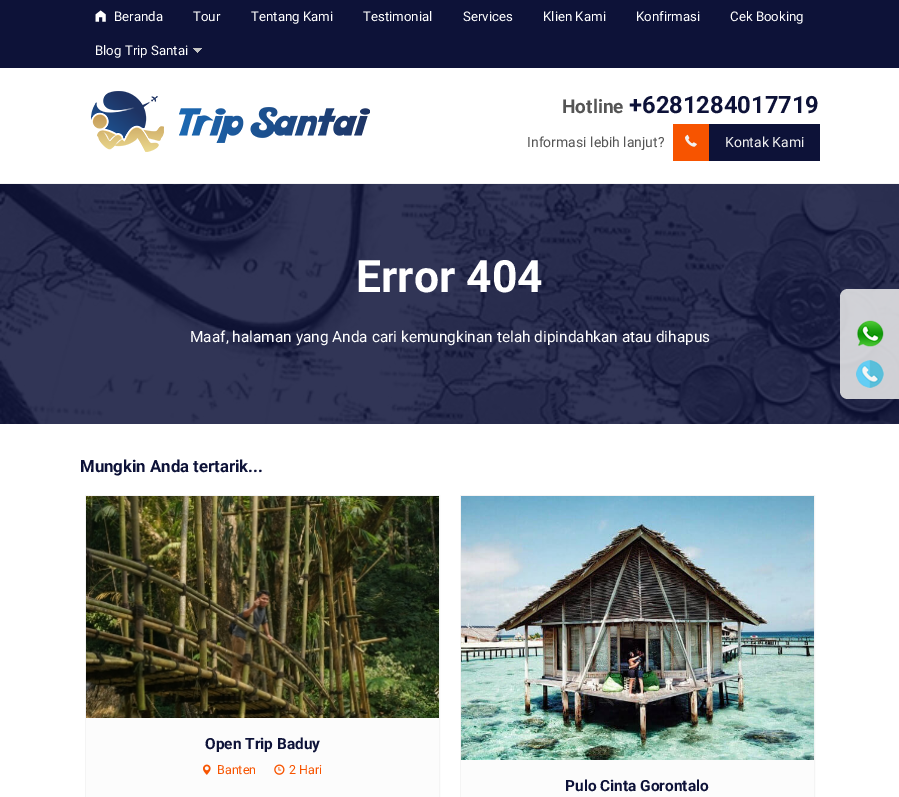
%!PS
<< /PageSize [899 797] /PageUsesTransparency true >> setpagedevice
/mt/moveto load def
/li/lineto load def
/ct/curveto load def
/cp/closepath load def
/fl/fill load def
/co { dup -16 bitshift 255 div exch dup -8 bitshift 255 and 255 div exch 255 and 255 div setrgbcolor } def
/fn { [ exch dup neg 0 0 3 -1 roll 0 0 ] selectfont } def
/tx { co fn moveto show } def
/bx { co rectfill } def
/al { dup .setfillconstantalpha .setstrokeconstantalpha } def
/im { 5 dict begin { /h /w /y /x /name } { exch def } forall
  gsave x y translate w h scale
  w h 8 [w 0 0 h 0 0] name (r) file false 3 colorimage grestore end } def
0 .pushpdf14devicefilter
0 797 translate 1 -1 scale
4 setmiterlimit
0 0 899 797 16#FFFFFF bx
0 0 899 68 16#0D1238 bx
(media/1.raw) 95 10 11 12 im
(media/2.raw) 193 48 9 5 im
0 183 899 1 16#F4F4F4 bx
(media/3.raw) 91 91 279 61 im
709 124 111 37 16#0D1238 bx
673 124 36 37 16#F75400 bx
(media/4.raw) 685 134 12 13 im
0 184 899 240 16#0D1238 bx
(media/5.raw) 0 184 899 240 im
0.85 al
16#EEEEEE co
848 289 mt 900 289 li 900 399 li 848 399 li 843.5 399 840 395.5 840 391 ct 840 297 li 840 292.5 843.5 289 848 289 ct cp fl
1 al
(media/6.raw) 857 320 27 27 im
(media/7.raw) 856 360 28 28 im
16#F4F4F4 co
85.5 495.5 354 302 rectstroke
(media/8.raw) 86 496 353 222 im
86 718 353 79 16#FCFCFC bx
(media/9.raw) 203 764 8 11 im
(media/10.raw) 274 764 11 11 im
16#F4F4F4 co
460.5 495.5 354 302 rectstroke
(media/11.raw) 461 496 353 264 im
461 760 353 37 16#FCFCFC bx
(Beranda) 114 21 /Roboto-Regular 13.25 16#FFFFFF tx
(Tour) 193 21 /Roboto-Regular 13.25 16#FFFFFF tx
(Tentang Kami) 251 21 /Roboto-Regular 13.25 16#FFFFFF tx
(Testimonial) 363 21 /Roboto-Regular 13.25 16#FFFFFF tx
(Services) 463 21 /Roboto-Regular 13.25 16#FFFFFF tx
(Klien Kami) 543 21 /Roboto-Regular 13.25 16#FFFFFF tx
(Konfirmasi) 636 21 /Roboto-Regular 13.25 16#FFFFFF tx
(Cek Booking) 730 21 /Roboto-Regular 13.25 16#FFFFFF tx
(Blog Trip Santai) 95 55 /Roboto-Regular 13.25 16#FFFFFF tx
(Hotline) 562 113 /Roboto-Bold 19 16#555555 tx
(+6281284017719) 629 113 /Roboto-Bold 23.75 16#0D1238 tx
(Informasi lebih lanjut?) 527 147 /Roboto-Regular 14 16#555555 tx
(Kontak Kami) 725 147 /Roboto-Regular 14 16#F1F1F1 tx
(Error 404) 356 292 /Roboto-Bold 44.5 16#FFFFFF tx
(Maaf, halaman yang Anda cari kemungkinan telah dipindahkan atau dihapus) 190 342 /Roboto-Regular 15.4 16#FFFFFF tx
(Mungkin Anda tertarik...) 80 472 /Roboto-Bold 16.75 16#0D1238 tx
(t) 272 610 /Roboto-Regular 14 16#54472D tx
(t) 296 610 /Roboto-Regular 14 16#54472D tx
(Open Trip Baduy) 205 749 /Roboto-Bold 15.4 16#0D1238 tx
(Banten) 217 774 /Roboto-Regular 12.5 16#F75400 tx
(2 Hari) 289 774 /Roboto-Regular 12.5 16#F75400 tx
(Lihat Detail) 621 631 /Roboto-Regular 14 16#615B51 tx
(Pulo Cinta Gorontalo) 565 791 /Roboto-Bold 15.4 16#0D1238 tx
.poppdf14devicefilter showpage
